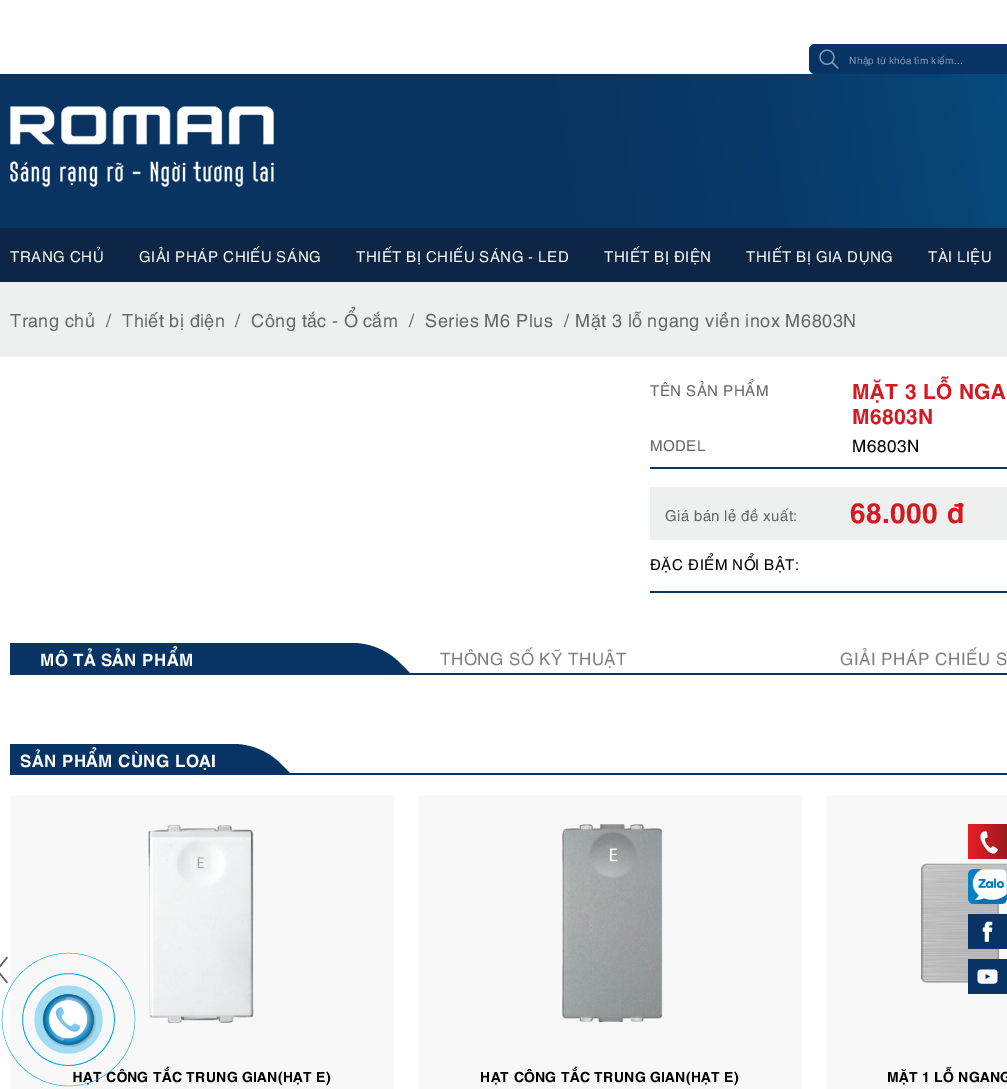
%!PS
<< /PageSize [1007 1089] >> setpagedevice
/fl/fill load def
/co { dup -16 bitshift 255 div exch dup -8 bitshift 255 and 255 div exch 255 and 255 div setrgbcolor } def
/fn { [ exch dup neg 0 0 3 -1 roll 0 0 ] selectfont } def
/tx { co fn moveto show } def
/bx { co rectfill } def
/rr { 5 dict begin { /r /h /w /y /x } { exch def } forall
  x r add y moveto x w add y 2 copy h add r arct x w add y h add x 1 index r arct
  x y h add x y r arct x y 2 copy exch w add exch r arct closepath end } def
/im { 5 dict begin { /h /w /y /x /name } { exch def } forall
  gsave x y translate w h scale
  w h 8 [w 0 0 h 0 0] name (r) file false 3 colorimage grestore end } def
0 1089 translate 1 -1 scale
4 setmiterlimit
0 0 1007 1089 16#FFFFFF bx
16#073465 co
809 44 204 30 6 rr fl
(media/1.raw) 819 49 20 20 im
(media/2.raw) 0 74 1007 154 im
(media/3.raw) 10 106 264 81 im
0 228 1007 54 16#0E2645 bx
0 282 1007 75 16#EEEFEF bx
650 467 357 2 16#073465 bx
650 487 357 53 16#EEEFEF bx
650 591 357 2 16#073465 bx
10 673 997 2 16#073465 bx
10 643 345 30 16#073465 bx
(media/4.raw) 355 643 55 30 im
10 773 997 2 16#073465 bx
10 744 226 29 16#073465 bx
(media/5.raw) 236 744 54 29 im
(media/6.raw) 0 956 8 28 im
10 795 384 294 16#F8F8F8 bx
(media/7.raw) 148 825 106 198 im
418 795 384 294 16#F8F8F8 bx
(media/8.raw) 562 824 101 199 im
826 795 181 294 16#F8F8F8 bx
(media/9.raw) 921 863 86 120 im
(media/10.raw) 968 824 39 35 im
(media/11.raw) 968 869 39 35 im
(media/12.raw) 968 914 39 35 im
(media/13.raw) 968 959 39 35 im
(Nhập từ khóa tìm kiếm...) 849 64 /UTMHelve-Regular 10 16#839AB2 tx
(TRANG CHỦ) 10 262 /UTMHelve-Regular 15 16#FFFFFF tx
(GIẢI PHÁP CHIẾU SÁNG) 139 262 /UTMHelve-Regular 15 16#FFFFFF tx
(THIẾT BỊ CHIẾU SÁNG - LED) 356 262 /UTMHelve-Regular 15 16#FFFFFF tx
(THIẾT BỊ ĐIỆN) 604 262 /UTMHelve-Regular 15 16#FFFFFF tx
(THIẾT BỊ GIA DỤNG) 746 262 /UTMHelve-Regular 15 16#FFFFFF tx
(TÀI LIỆU) 928 262 /UTMHelve-Regular 15 16#FFFFFF tx
(Trang chủ) 10 327 /UTMHelve-Regular 18 16#666666 tx
(/) 106 327 /UTMHelve-Regular 18 16#666666 tx
(Thiết bị điện) 122 327 /UTMHelve-Regular 18 16#666666 tx
(/) 235 327 /UTMHelve-Regular 18 16#666666 tx
(Công tắc - Ổ cắm) 251 327 /UTMHelve-Regular 18 16#666666 tx
(/) 409 327 /UTMHelve-Regular 18 16#666666 tx
(Series M6 Plus) 425 327 /UTMHelve-Regular 18 16#666666 tx
(/) 564 327 /UTMHelve-Regular 18 16#666666 tx
(Mặt 3 lỗ ngang viền inox M6803N) 575 327 /UTMHelve-Regular 18 16#666666 tx
(TÊN SẢN PHẨM) 650 396 /UTMHelve-Regular 15 16#666666 tx
(MẶT 3 LỖ NGA) 852 399 /UTMHelve-Bold 21 16#D31921 tx
(M6803N) 852 424 /UTMHelve-Bold 21 16#D31921 tx
(MODEL) 650 451 /UTMHelve-Regular 15 16#666666 tx
(M6803N) 852 452 /UTMHelve-Regular 17 16#000000 tx
(Giá bán lẻ đề xuất:) 665 521 /UTMHelve-Regular 15 16#666666 tx
(68.000 đ) 850 523 /UTMHelve-Bold 28 16#D31921 tx
(ĐẶC ĐIỂM NỔI BẬT:) 650 570 /UTMHelve-Regular 15 16#000000 tx
(MÔ TẢ SẢN PHẨM) 40 666 /UTMHelve-Bold 17 16#FFFFFF tx
(THÔNG SỐ KỸ THUẬT) 440 665 /UTMHelve-Regular 17 16#808083 tx
(GIẢI PHÁP CHIẾU S) 840 665 /UTMHelve-Regular 17 16#808083 tx
(SẢN PHẨM CÙNG LOẠI) 20 767 /UTMHelve-Bold 17 16#FFFFFF tx
(HẠT CÔNG TẮC TRUNG GIAN\(HẠT E\)) 72 1082 /UTMHelve-Bold 14 16#000000 tx
(HẠT CÔNG TẮC TRUNG GIAN\(HẠT E\)) 480 1082 /UTMHelve-Bold 14 16#000000 tx
(MẶT 1 LỖ NGANG) 887 1082 /UTMHelve-Bold 14 16#000000 tx
(media/14.raw) 1 952 135 135 im
(media/15.raw) 43 994 53 53 im
showpage
